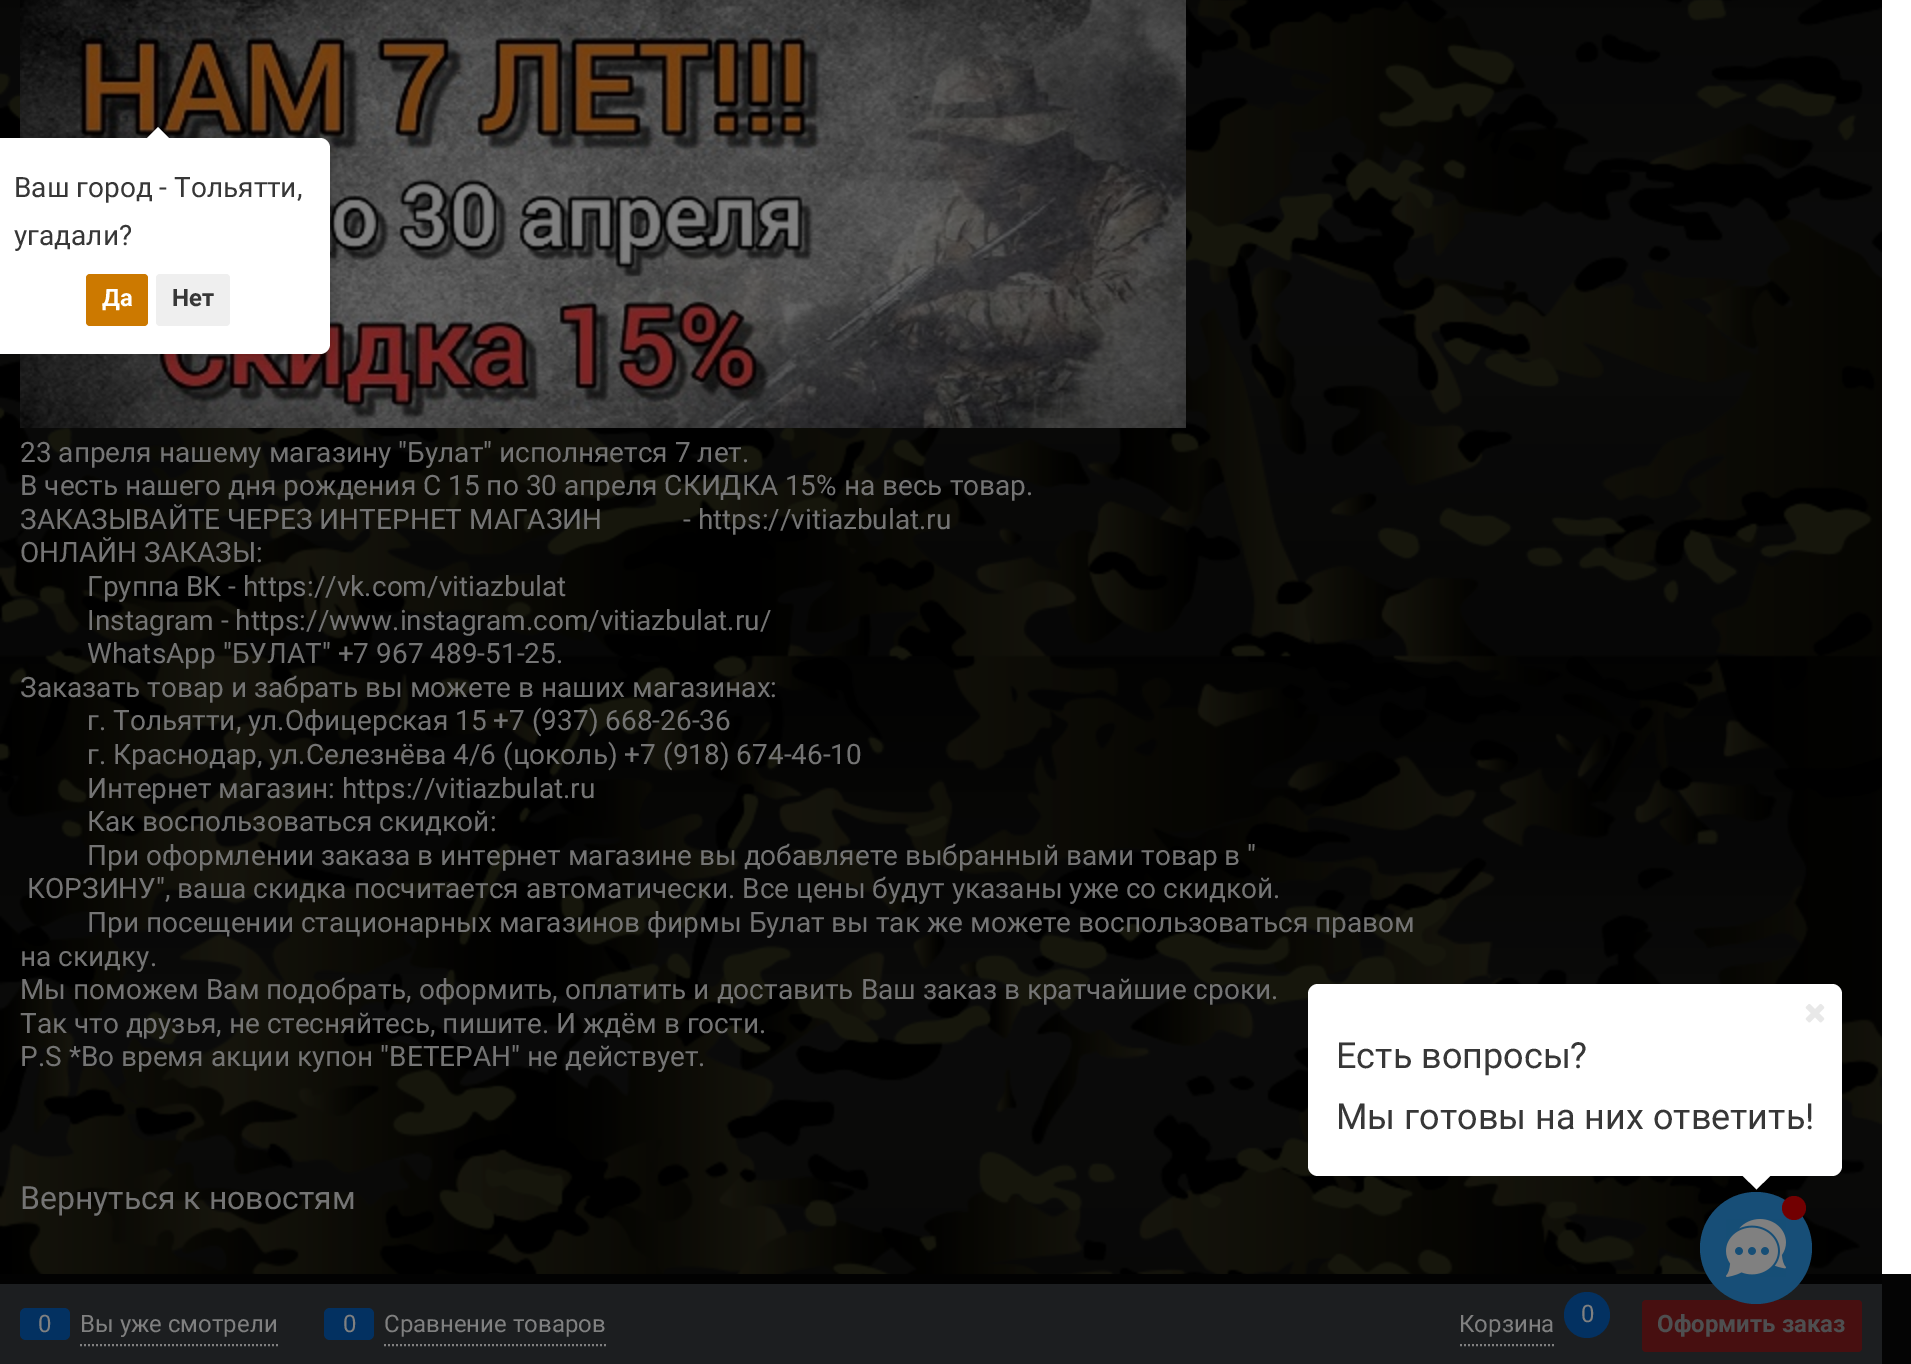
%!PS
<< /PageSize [1911 1364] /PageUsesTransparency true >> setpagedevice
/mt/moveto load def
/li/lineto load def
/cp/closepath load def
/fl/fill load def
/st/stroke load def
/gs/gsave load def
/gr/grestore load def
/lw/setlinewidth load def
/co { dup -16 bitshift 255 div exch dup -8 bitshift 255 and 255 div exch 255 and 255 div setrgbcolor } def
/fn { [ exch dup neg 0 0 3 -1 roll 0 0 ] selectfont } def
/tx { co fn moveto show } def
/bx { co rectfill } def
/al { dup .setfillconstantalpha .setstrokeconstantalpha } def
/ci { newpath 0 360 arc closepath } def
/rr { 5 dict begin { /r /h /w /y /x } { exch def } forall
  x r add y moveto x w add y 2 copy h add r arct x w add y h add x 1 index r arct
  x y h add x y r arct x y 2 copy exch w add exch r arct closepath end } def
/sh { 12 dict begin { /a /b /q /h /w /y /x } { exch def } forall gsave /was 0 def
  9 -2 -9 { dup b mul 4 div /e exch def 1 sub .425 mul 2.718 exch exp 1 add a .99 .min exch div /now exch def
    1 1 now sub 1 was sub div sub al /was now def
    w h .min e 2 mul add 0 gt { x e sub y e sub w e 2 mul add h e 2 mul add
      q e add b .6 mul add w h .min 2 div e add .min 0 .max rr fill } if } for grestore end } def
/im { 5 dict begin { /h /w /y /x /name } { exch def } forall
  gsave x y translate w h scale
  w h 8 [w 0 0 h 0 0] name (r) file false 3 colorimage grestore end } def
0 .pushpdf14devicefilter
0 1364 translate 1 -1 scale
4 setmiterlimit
0 0 1911 1364 16#FFFFFF bx
(media/1.raw) 0 0 1882 1274 im
(media/2.raw) 20 0 1166 428 im
16#000000 co
-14 138 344 216 10 9 .25 sh
16#FFFFFF co
-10 138 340 216 10 rr fl
gs
0 120 330 18 rectclip
158 127 mt 172 141 li 158 155.5 li 144 141 li cp fl
gr
16#CC7900 co
86 274 62 52 4 rr fl
16#EFEFEF co
156 274 74 52 4 rr fl
1882 1274 29 90 16#040404 bx
0 1274 1882 10 16#020202 bx
0 1284 1882 80 16#1C1E20 bx
16#808080 co
2 lw
[2 2] 0 setdash
80 1345 mt 278 1345 li st
16#033161 co
20 1308 50 32 6 rr fl
16#808080 co
384 1345 mt 606 1345 li st
16#033161 co
324 1308 50 32 6 rr fl
16#808080 co
1460 1345 mt 1554 1345 li st
16#033161 co
1587 1315 23 ci fl
16#470F10 co
1642 1300 220 52 4 rr fl
16#FFFFFF co
1308 984 534 192 10 rr fl
(media/3.raw) 1805 1004 20 19 im
gs
1308 1176 534 18 rectclip
1756.5 1161.5 mt 1770.5 1175.5 li 1756.5 1189.5 li 1742.5 1175.5 li cp fl
gr
16#174E77 co
1756 1248 56 ci fl
(media/4.raw) 1726 1219 60 58 im
16#720001 co
1794 1208 12 ci fl
(Ваш город - Тольятти,) 14 197 /Roboto-Regular 28 16#373737 tx
(угадали?) 14 245 /Roboto-Regular 28 16#373737 tx
(Да) 102 306 /Roboto-Bold 24 16#FFFFFF tx
(Нет) 172 306 /Roboto-Bold 24 16#373737 tx
(23 апреля нашему магазину "Булат" исполняется 7 лет.) 20 462 /Roboto-Regular 28 16#747474 tx
(В честь нашего дня рождения С 15 по 30 апреля СКИДКА 15% на весь товар.) 20 495 /Roboto-Regular 28 16#747474 tx
(ЗАКАЗЫВАЙТЕ ЧЕРЕЗ ИНТЕРНЕТ МАГАЗИН) 20 529 /Roboto-Regular 28 16#747474 tx
(- https://vitiazbulat.ru) 683 529 /Roboto-Regular 28 16#747474 tx
(ОНЛАЙН ЗАКАЗЫ:) 20 562 /Roboto-Regular 28 16#747474 tx
(Группа ВК - https://vk.com/vitiazbulat) 87 596 /Roboto-Regular 28 16#747474 tx
(Instagram - https://www.instagram.com/vitiazbulat.ru/) 87 630 /Roboto-Regular 28 16#747474 tx
(WhatsApp "БУЛАТ" +7 967 489-51-25.) 87 663 /Roboto-Regular 28 16#747474 tx
(Заказать товар и забрать вы можете в наших магазинах:) 20 697 /Roboto-Regular 28 16#747474 tx
(г. Тольятти, ул.Офицерская 15 +7 \(937\) 668-26-36) 87 730 /Roboto-Regular 28 16#747474 tx
(г. Краснодар, ул.Селезнёва 4/6 \(цоколь\) +7 \(918\) 674-46-10) 87 764 /Roboto-Regular 28 16#747474 tx
(Интернет магазин: https://vitiazbulat.ru) 87 798 /Roboto-Regular 28 16#747474 tx
(Как воспользоваться скидкой:) 87 831 /Roboto-Regular 28 16#747474 tx
(При оформлении заказа в интернет магазине вы добавляете выбранный вами товар в ") 87 865 /Roboto-Regular 28 16#747474 tx
(КОРЗИНУ", ваша скидка посчитается автоматически. Все цены будут указаны уже со скидкой.) 27 898 /Roboto-Regular 28 16#747474 tx
(При посещении стационарных магазинов фирмы Булат вы так же можете воспользоваться правом) 87 932 /Roboto-Regular 28 16#747474 tx
(на скидку.) 20 966 /Roboto-Regular 28 16#747474 tx
(Мы поможем Вам подобрать, оформить, оплатить и доставить Ваш заказ в кратчайшие сроки.) 20 999 /Roboto-Regular 28 16#747474 tx
(Так что друзья, не стесняйтесь, пишите. И ждём в гости.) 20 1033 /Roboto-Regular 28 16#747474 tx
(P.S *Во время акции купон "ВЕТЕРАН" не действует.) 20 1066 /Roboto-Regular 28 16#747474 tx
(Вернуться к новостям) 20 1209 /Roboto-Regular 32 16#747474 tx
(0) 38 1332 /Roboto-Regular 24 16#808080 tx
(Вы уже смотрели) 80 1332 /Roboto-Regular 24 16#808080 tx
(0) 343 1332 /Roboto-Regular 24 16#808080 tx
(Сравнение товаров) 384 1332 /Roboto-Regular 24 16#808080 tx
(Корзина) 1459 1332 /Roboto-Regular 24 16#808080 tx
(0) 1581 1322 /Roboto-Regular 24 16#808080 tx
(Оформить заказ) 1657 1332 /Roboto-Bold 24 16#4E4F50 tx
(Есть вопросы?) 1336 1068 /Roboto-Regular 36 16#373737 tx
(Мы готовы на них ответить!) 1336 1129 /Roboto-Regular 36 16#373737 tx
.poppdf14devicefilter showpage
